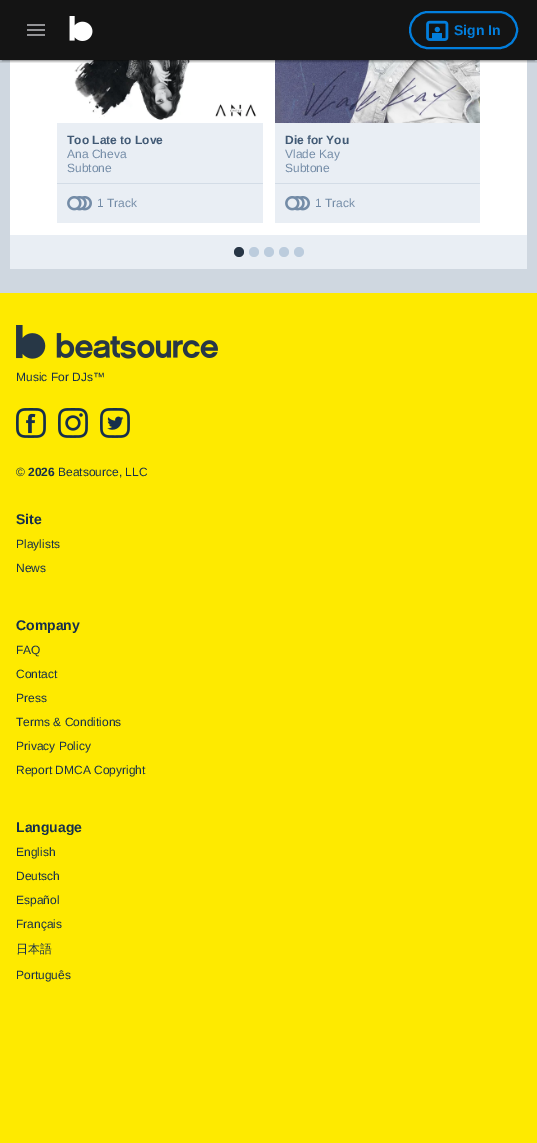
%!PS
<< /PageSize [537 1143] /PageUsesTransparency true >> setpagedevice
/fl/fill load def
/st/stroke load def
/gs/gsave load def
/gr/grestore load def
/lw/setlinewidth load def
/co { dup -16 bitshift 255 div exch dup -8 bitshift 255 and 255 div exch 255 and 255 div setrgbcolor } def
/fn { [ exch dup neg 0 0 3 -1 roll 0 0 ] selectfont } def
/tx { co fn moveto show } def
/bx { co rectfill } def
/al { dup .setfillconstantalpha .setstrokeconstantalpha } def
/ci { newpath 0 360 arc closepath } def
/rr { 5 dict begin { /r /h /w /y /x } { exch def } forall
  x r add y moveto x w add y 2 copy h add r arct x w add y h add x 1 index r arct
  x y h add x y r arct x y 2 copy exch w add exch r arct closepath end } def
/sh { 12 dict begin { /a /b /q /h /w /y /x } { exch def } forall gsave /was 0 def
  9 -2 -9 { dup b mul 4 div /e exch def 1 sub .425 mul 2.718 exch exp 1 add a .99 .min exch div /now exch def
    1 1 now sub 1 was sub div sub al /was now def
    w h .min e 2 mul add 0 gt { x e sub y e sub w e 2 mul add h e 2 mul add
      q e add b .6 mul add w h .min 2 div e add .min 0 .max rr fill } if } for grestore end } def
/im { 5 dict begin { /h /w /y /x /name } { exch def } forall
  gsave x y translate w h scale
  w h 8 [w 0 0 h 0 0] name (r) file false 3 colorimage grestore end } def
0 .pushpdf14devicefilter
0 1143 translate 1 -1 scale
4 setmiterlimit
0 0 537 1143 16#CFD7E0 bx
0 0 537 60 16#141414 bx
27 24 18 2 16#939396 bx
27 29 18 2 16#939396 bx
27 34 18 2 16#939396 bx
(media/1.raw) 69 16 24 25 im
16#027EDD co
2 lw
410 12 107 36 18 rr st
(media/2.raw) 426 20 23 21 im
10 60 517 175 16#FFFFFF bx
(media/3.raw) 74 60 183 60 im
(media/5.raw) 275 60 205 63 im
gs
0 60 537 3 rectclip
16#000000 co
0 1 537 60 0 2.5 .12 sh
0 2 537 60 0 1 .14 sh
gr
gs
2 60 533 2 rectclip
16#000000 co
2 5 533 56 0 .5 .2 sh
gr
57 123 206 100 16#E9EEF4 bx
57 183 206 1 16#D3DCE6 bx
(media/4.raw) 67 196 25 15 im
275 123 205 100 16#E9EEF4 bx
275 183 205 1 16#D3DCE6 bx
(media/4.raw) 285 196 25 15 im
10 235 517 34 16#E9EEF4 bx
16#283646 co
239 252 5 ci fl
16#BCCCDD co
254 252 5 ci fl
269 252 5 ci fl
284 252 5 ci fl
299 252 5 ci fl
0 293 537 850 16#FEEA00 bx
(media/6.raw) 16 325 202 34 im
(media/7.raw) 16 408 30 30 im
(media/8.raw) 58 408 30 30 im
(media/9.raw) 100 408 30 30 im
(Sign In) 454 35 /LiberationSans-Bold 14 16#027EDD tx
(Too Late to Love) 67 144 /LiberationSans-Bold 12 16#415974 tx
(Ana Cheva) 67 158 /LiberationSans-Regular 12 16#748CA7 tx
(Subtone) 67 172 /LiberationSans-Regular 12 16#748CA7 tx
(1 Track) 97 207 /LiberationSans-Regular 12 16#748CA7 tx
(Die for You) 285 144 /LiberationSans-Bold 12 16#415974 tx
(Vlade Kay) 285 158 /LiberationSans-Regular 12 16#748CA7 tx
(Subtone) 285 172 /LiberationSans-Regular 12 16#748CA7 tx
(1 Track) 315 207 /LiberationSans-Regular 12 16#748CA7 tx
(Music For DJs™) 16 381 /LiberationSans-Regular 12 16#162F4B tx
(©) 16 476 /LiberationSans-Regular 12 16#162F4B tx
(2026) 28 476 /LiberationSans-Bold 12 16#162F4B tx
(Beatsource, LLC) 58 476 /LiberationSans-Regular 12 16#162F4B tx
(Site) 16 524 /LiberationSans-Bold 14 16#162F4B tx
(Playlists) 16 548 /LiberationSans-Regular 12 16#162F4B tx
(News) 16 572 /LiberationSans-Regular 12 16#162F4B tx
(Company) 16 630 /LiberationSans-Bold 14 16#162F4B tx
(FAQ) 16 654 /LiberationSans-Regular 12 16#162F4B tx
(Contact) 16 678 /LiberationSans-Regular 12 16#162F4B tx
(Press) 16 702 /LiberationSans-Regular 12 16#162F4B tx
(Terms & Conditions) 16 726 /LiberationSans-Regular 12 16#162F4B tx
(Privacy Policy) 16 750 /LiberationSans-Regular 12 16#162F4B tx
(Report DMCA Copyright) 16 774 /LiberationSans-Regular 12 16#162F4B tx
(Language) 16 832 /LiberationSans-Bold 14 16#162F4B tx
(English) 16 856 /LiberationSans-Regular 12 16#162F4B tx
(Deutsch) 16 880 /LiberationSans-Regular 12 16#162F4B tx
(Español) 16 904 /LiberationSans-Regular 12 16#162F4B tx
(Français) 16 928 /LiberationSans-Regular 12 16#162F4B tx
(日本語) 16 953 /WenQuanYiZenHei-Medium 12 16#162F4B tx
(Português) 16 979 /LiberationSans-Regular 12 16#162F4B tx
.poppdf14devicefilter showpage
